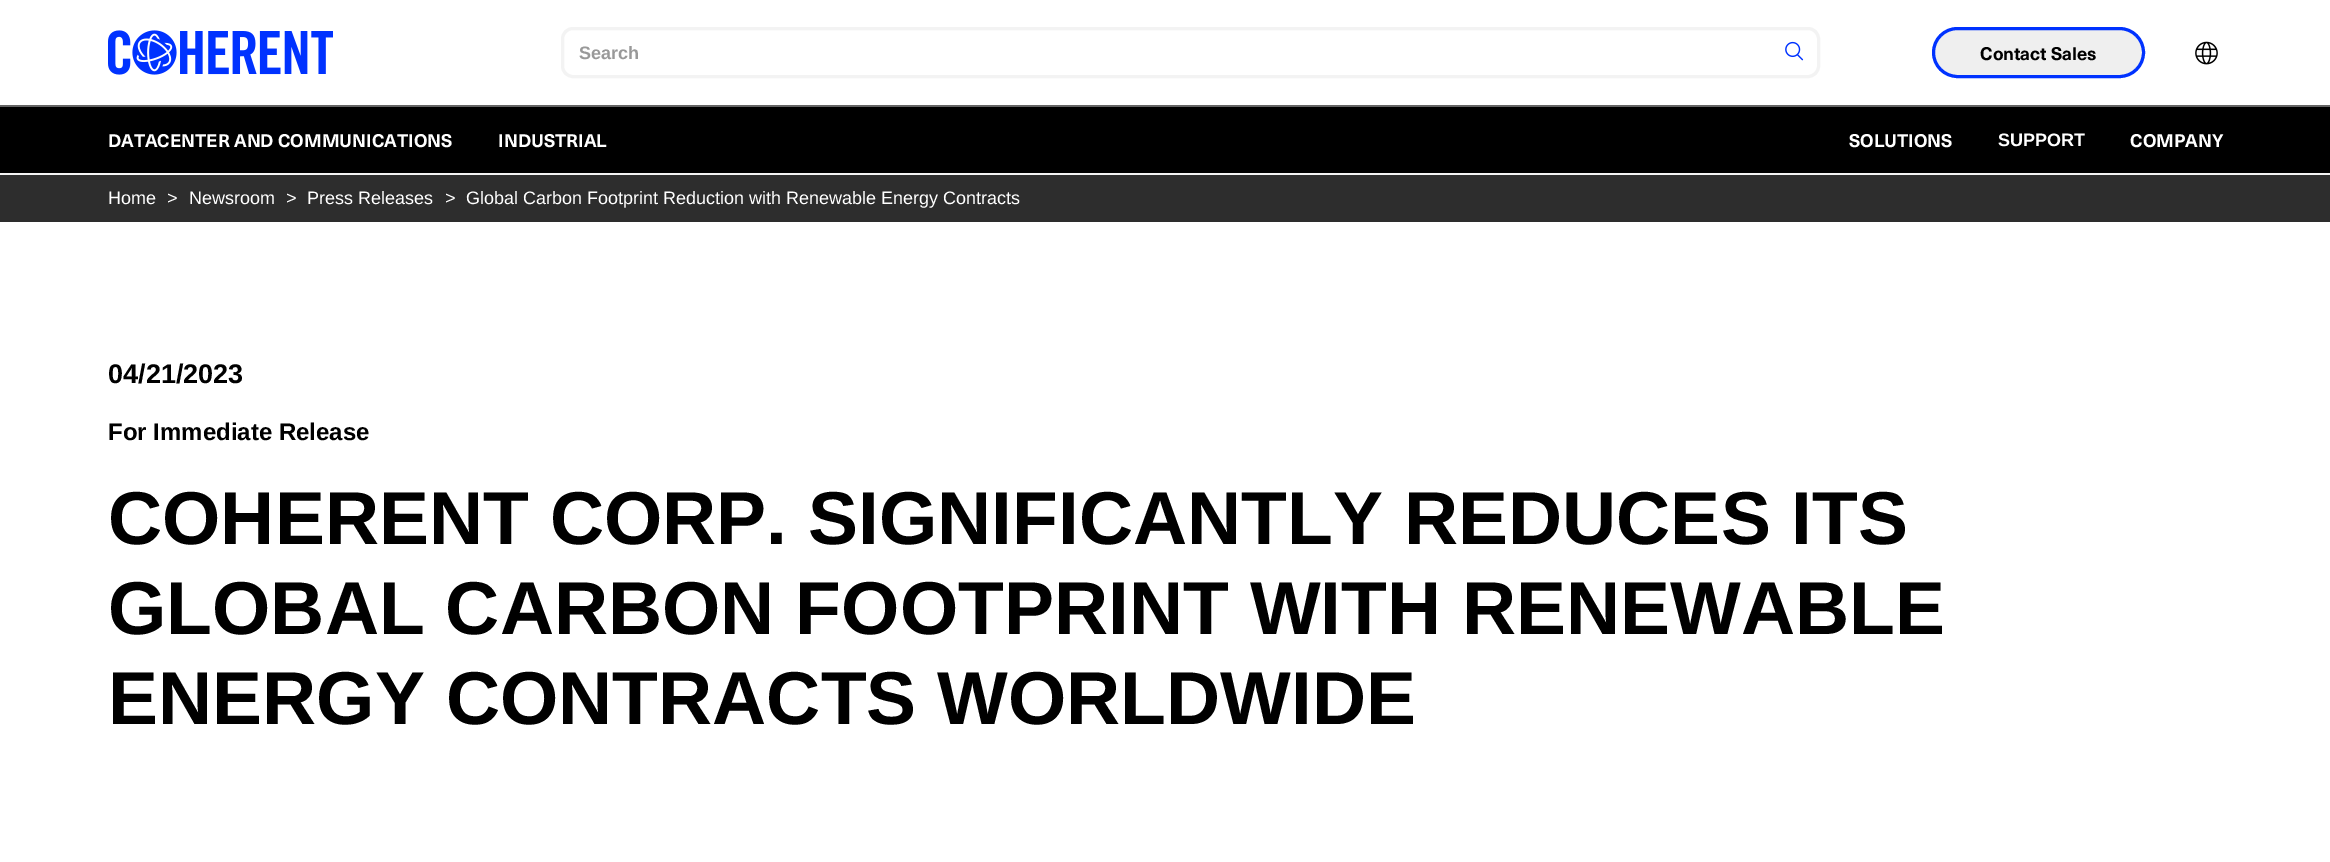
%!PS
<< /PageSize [2330 862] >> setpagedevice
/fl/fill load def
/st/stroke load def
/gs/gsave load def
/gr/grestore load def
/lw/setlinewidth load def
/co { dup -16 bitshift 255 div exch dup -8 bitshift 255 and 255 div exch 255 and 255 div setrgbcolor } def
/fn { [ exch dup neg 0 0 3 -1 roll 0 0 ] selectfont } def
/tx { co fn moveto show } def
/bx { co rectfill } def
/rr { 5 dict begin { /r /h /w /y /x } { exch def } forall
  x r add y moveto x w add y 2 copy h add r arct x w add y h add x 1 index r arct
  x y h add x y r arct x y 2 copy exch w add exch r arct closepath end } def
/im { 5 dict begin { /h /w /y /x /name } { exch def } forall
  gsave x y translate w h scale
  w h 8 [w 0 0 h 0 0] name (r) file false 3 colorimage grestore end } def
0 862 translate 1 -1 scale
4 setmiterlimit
0 0 2330 862 16#FFFFFF bx
0 173 2330 2 16#F3F3F3 bx
(media/1.raw) 108 30 225 45 im
3 lw
562.5 28.5 1256 48 10.5 rr st
(media/2.raw) 1785 41 19 20 im
16#EFEFEF co
1933.5 28.5 210 48 24 rr gs fl gr
16#0032FF co
st
(media/3.raw) 2195 41 23 24 im
0 107 2330 66 16#000000 bx
0 105 2330 2 16#646464 bx
0 175 2330 47 16#2D2D2D bx
(Search) 579 59 /LiberationSans-Bold 18 16#999999 tx
(Contact Sales) 1980 60 /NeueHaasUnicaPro-Bold 18 16#000000 tx
(DATACENTER AND COMMUNICATIONS) 108 147 /NeueHaasUnicaPro-Bold 18 16#FFFFFF tx
(INDUSTRIAL) 498 147 /NeueHaasUnicaPro-Bold 18 16#FFFFFF tx
(SOLUTIONS) 1849 147 /NeueHaasUnicaPro-Bold 18 16#FFFFFF tx
(SUPPORT) 1998 146 /LiberationSans-Bold 18 16#FFFFFF tx
(COMPANY) 2130 147 /NeueHaasUnicaPro-Bold 18 16#FFFFFF tx
(Home) 108 204 /LiberationSans-Regular 18 16#FFFFFF tx
(>) 167 204 /LiberationSans-Regular 18 16#FFFFFF tx
(Newsroom) 189 204 /LiberationSans-Regular 18 16#FFFFFF tx
(>) 286 204 /LiberationSans-Regular 18 16#FFFFFF tx
(Press Releases) 307 204 /LiberationSans-Regular 18 16#FFFFFF tx
(>) 445 204 /LiberationSans-Regular 18 16#FFFFFF tx
(Global Carbon Footprint Reduction with Renewable Energy Contracts) 466 204 /LiberationSans-Regular 18 16#FFFFFF tx
(04/21/2023) 108 383 /LiberationSans-Bold 27 16#000000 tx
(For Immediate Release) 108 440 /LiberationSans-Bold 24 16#000000 tx
(COHERENT CORP. SIGNIFICANTLY REDUCES ITS) 108 544 /LiberationSans-Bold 75 16#000000 tx
(GLOBAL CARBON FOOTPRINT WITH RENEWABLE) 108 634 /LiberationSans-Bold 75 16#000000 tx
(ENERGY CONTRACTS WORLDWIDE) 108 724 /LiberationSans-Bold 75 16#000000 tx
showpage
